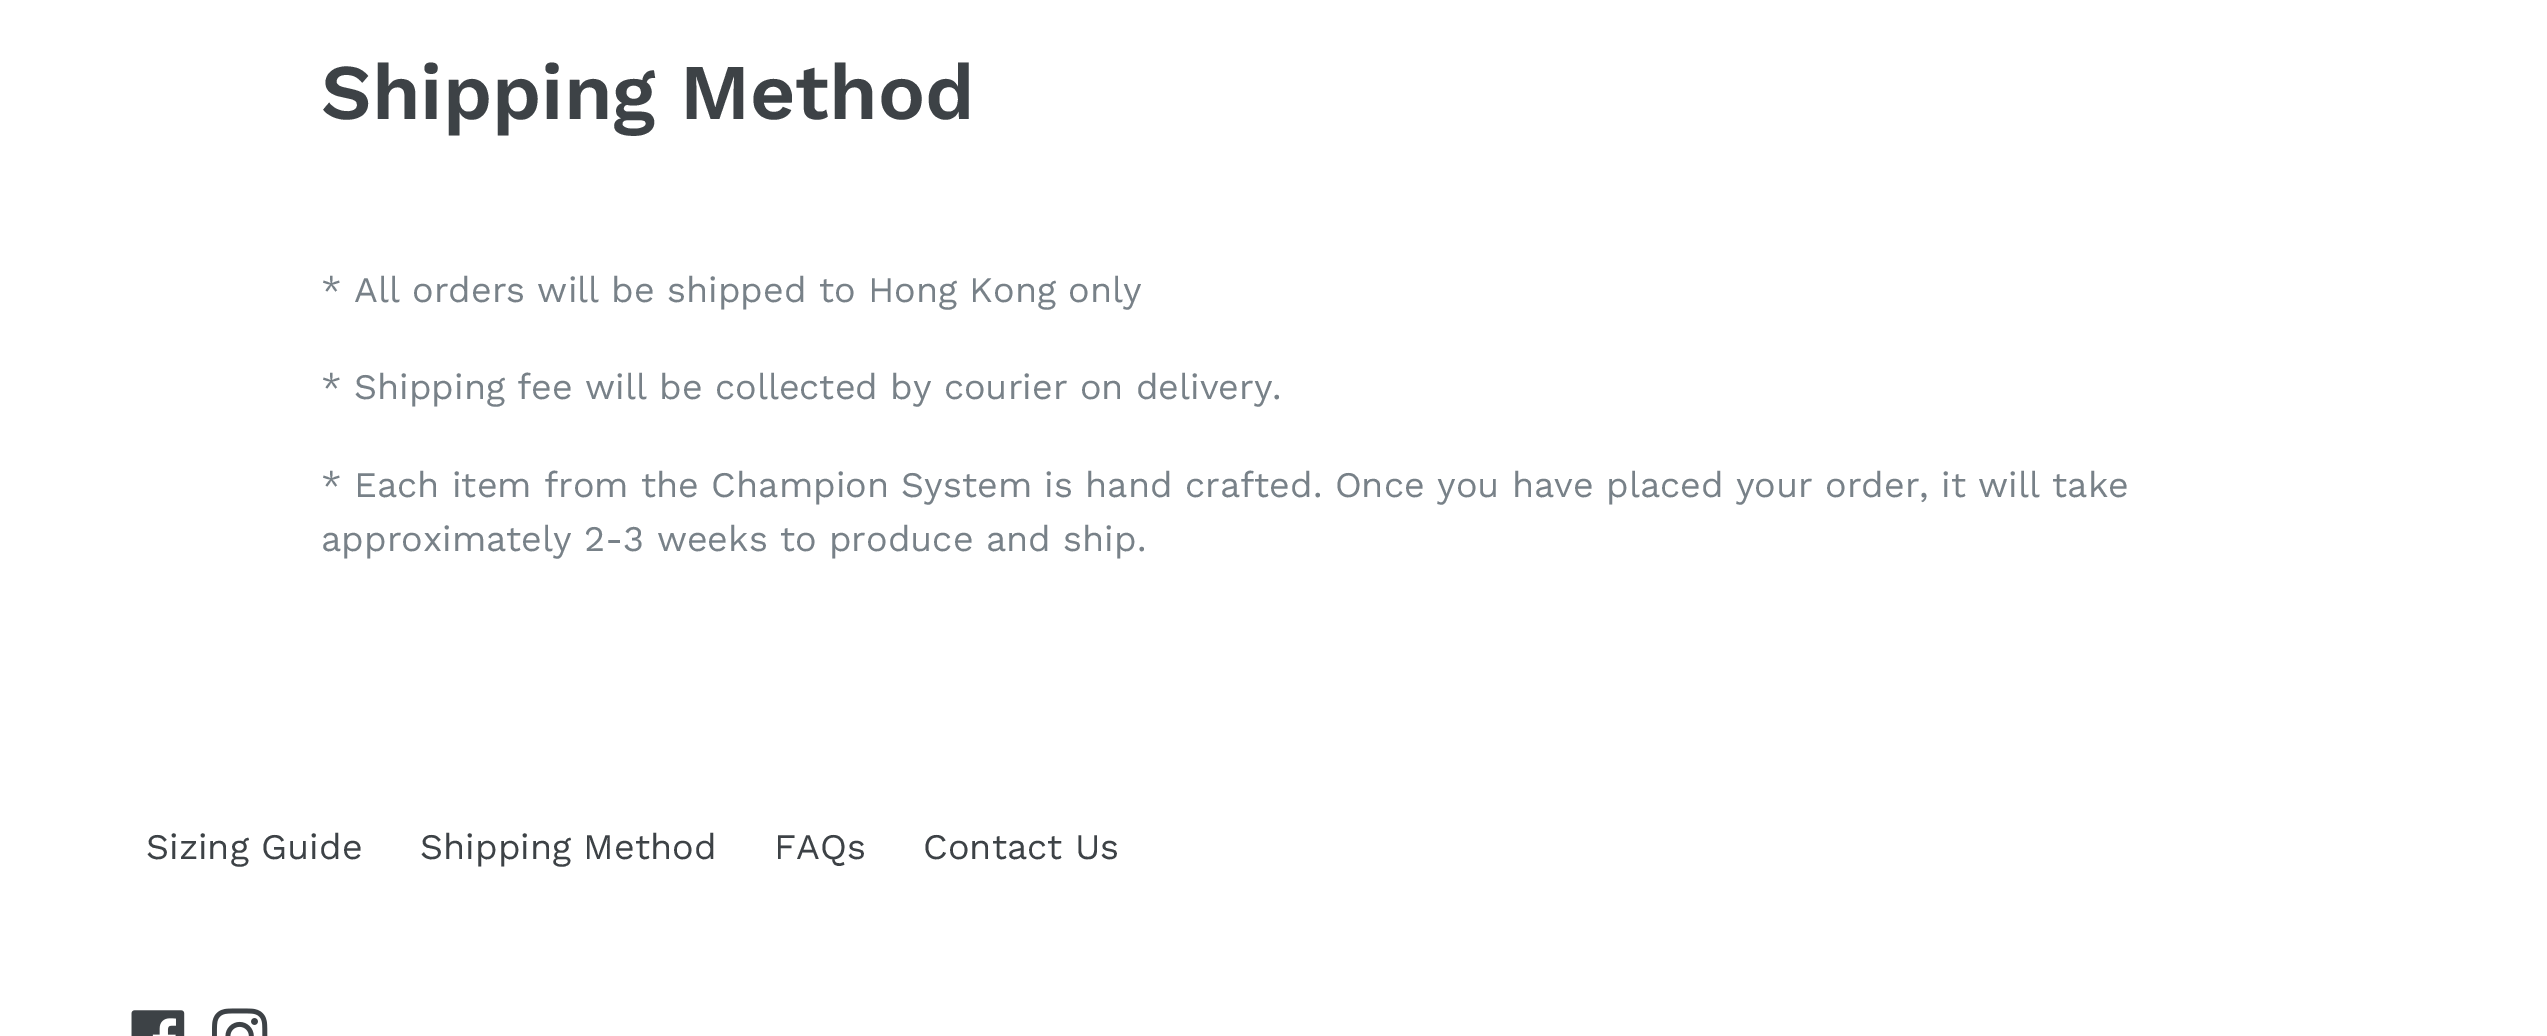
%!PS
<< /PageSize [2547 1036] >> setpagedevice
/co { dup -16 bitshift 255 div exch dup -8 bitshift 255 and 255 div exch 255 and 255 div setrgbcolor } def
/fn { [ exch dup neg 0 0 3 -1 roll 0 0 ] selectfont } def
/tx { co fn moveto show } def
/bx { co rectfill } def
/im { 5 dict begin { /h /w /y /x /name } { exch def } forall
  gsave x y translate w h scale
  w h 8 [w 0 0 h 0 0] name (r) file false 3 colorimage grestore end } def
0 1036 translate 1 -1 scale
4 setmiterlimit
0 0 2547 1036 16#FFFFFF bx
(media/1.raw) 131 1010 54 26 im
(media/2.raw) 212 1008 56 28 im
(Shipping Method) 321 119 /WorkSans-SemiBold 78.75 16#3D4246 tx
(* All orders will be shipped to Hong Kong only) 321 302 /WorkSans-Regular 36 16#788188 tx
(* Shipping fee will be collected by courier on delivery.) 321 399 /WorkSans-Regular 36 16#788188 tx
(* Each item from the Champion System is hand crafted. Once you have placed your order, it will take) 321 497 /WorkSans-Regular 36 16#788188 tx
(approximately 2-3 weeks to produce and ship.) 321 551 /WorkSans-Regular 36 16#788188 tx
(Sizing Guide) 146 859 /WorkSans-Regular 36 16#3D4246 tx
(Shipping Method) 420 859 /WorkSans-Regular 36 16#3D4246 tx
(FAQs) 774 859 /WorkSans-Regular 36 16#3D4246 tx
(Contact Us) 923 859 /WorkSans-Regular 36 16#3D4246 tx
showpage
